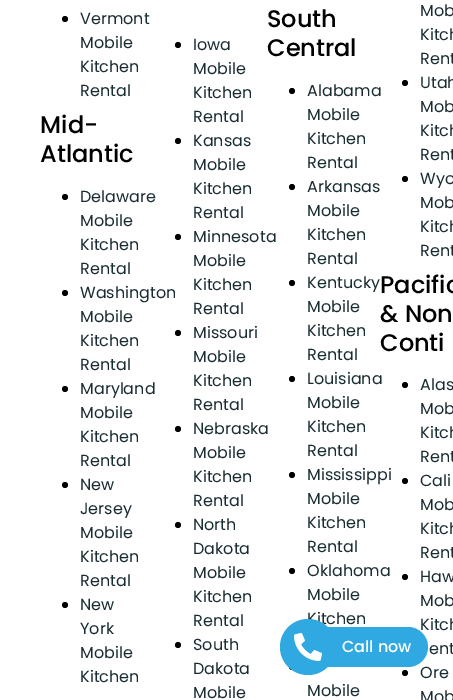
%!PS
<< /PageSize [453 700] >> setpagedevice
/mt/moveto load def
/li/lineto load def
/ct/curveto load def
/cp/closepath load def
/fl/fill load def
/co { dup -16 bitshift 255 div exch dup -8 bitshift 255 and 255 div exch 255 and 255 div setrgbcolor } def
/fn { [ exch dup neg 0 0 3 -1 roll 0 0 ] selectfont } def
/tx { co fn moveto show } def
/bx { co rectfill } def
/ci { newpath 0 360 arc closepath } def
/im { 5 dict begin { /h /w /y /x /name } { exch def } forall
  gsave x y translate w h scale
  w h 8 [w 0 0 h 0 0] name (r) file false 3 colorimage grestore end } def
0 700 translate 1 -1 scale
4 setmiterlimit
0 0 453 700 16#FFFFFF bx
16#000000 co
65 19 3 ci fl
178 45 3 ci fl
178 141 3 ci fl
178 237 3 ci fl
178 333 3 ci fl
178 429 3 ci fl
178 525 3 ci fl
178 645 3 ci fl
65 197 3 ci fl
65 293 3 ci fl
65 389 3 ci fl
65 485 3 ci fl
65 605 3 ci fl
405 83 3 ci fl
405 179 3 ci fl
292 91 3 ci fl
292 187 3 ci fl
292 283 3 ci fl
292 379 3 ci fl
292 475 3 ci fl
292 571 3 ci fl
292 667 3 ci fl
405 385 3 ci fl
405 481 3 ci fl
405 577 3 ci fl
405 673 3 ci fl
(Vermont) 80 24 /Poppins-Regular 16 16#192C32 tx
(Mobile) 80 48 /Poppins-Regular 16 16#192C32 tx
(Kitchen) 80 72 /Poppins-Regular 16 16#192C32 tx
(Rental) 80 96 /Poppins-Regular 16 16#192C32 tx
(Iowa) 193 50 /Poppins-Regular 16 16#192C32 tx
(Mobile) 193 74 /Poppins-Regular 16 16#192C32 tx
(Kitchen) 193 98 /Poppins-Regular 16 16#192C32 tx
(Rental) 193 122 /Poppins-Regular 16 16#192C32 tx
(Kansas) 193 146 /Poppins-Regular 16 16#192C32 tx
(Mobile) 193 170 /Poppins-Regular 16 16#192C32 tx
(Kitchen) 193 194 /Poppins-Regular 16 16#192C32 tx
(Rental) 193 218 /Poppins-Regular 16 16#192C32 tx
(Minnesota) 193 242 /Poppins-Regular 16 16#192C32 tx
(Mobile) 193 266 /Poppins-Regular 16 16#192C32 tx
(Kitchen) 193 290 /Poppins-Regular 16 16#192C32 tx
(Rental) 193 314 /Poppins-Regular 16 16#192C32 tx
(Missouri) 193 338 /Poppins-Regular 16 16#192C32 tx
(Mobile) 193 362 /Poppins-Regular 16 16#192C32 tx
(Kitchen) 193 386 /Poppins-Regular 16 16#192C32 tx
(Rental) 193 410 /Poppins-Regular 16 16#192C32 tx
(Nebraska) 193 434 /Poppins-Regular 16 16#192C32 tx
(Mobile) 193 458 /Poppins-Regular 16 16#192C32 tx
(Kitchen) 193 482 /Poppins-Regular 16 16#192C32 tx
(Rental) 193 506 /Poppins-Regular 16 16#192C32 tx
(North) 193 530 /Poppins-Regular 16 16#192C32 tx
(Dakota) 193 554 /Poppins-Regular 16 16#192C32 tx
(Mobile) 193 578 /Poppins-Regular 16 16#192C32 tx
(Kitchen) 193 602 /Poppins-Regular 16 16#192C32 tx
(Rental) 193 626 /Poppins-Regular 16 16#192C32 tx
(South) 193 650 /Poppins-Regular 16 16#192C32 tx
(Dakota) 193 674 /Poppins-Regular 16 16#192C32 tx
(Mobile) 193 698 /Poppins-Regular 16 16#192C32 tx
(Mid-) 40 133 /Poppins-Medium 24 16#000000 tx
(Atlantic) 40 162 /Poppins-Medium 24 16#000000 tx
(Delaware) 80 202 /Poppins-Regular 16 16#192C32 tx
(Mobile) 80 226 /Poppins-Regular 16 16#192C32 tx
(Kitchen) 80 250 /Poppins-Regular 16 16#192C32 tx
(Rental) 80 274 /Poppins-Regular 16 16#192C32 tx
(Washington) 80 298 /Poppins-Regular 16 16#192C32 tx
(Mobile) 80 322 /Poppins-Regular 16 16#192C32 tx
(Kitchen) 80 346 /Poppins-Regular 16 16#192C32 tx
(Rental) 80 370 /Poppins-Regular 16 16#192C32 tx
(Maryland) 80 394 /Poppins-Regular 16 16#192C32 tx
(Mobile) 80 418 /Poppins-Regular 16 16#192C32 tx
(Kitchen) 80 442 /Poppins-Regular 16 16#192C32 tx
(Rental) 80 466 /Poppins-Regular 16 16#192C32 tx
(New) 80 490 /Poppins-Regular 16 16#192C32 tx
(Jersey) 80 514 /Poppins-Regular 16 16#192C32 tx
(Mobile) 80 538 /Poppins-Regular 16 16#192C32 tx
(Kitchen) 80 562 /Poppins-Regular 16 16#192C32 tx
(Rental) 80 586 /Poppins-Regular 16 16#192C32 tx
(New) 80 610 /Poppins-Regular 16 16#192C32 tx
(York) 80 634 /Poppins-Regular 16 16#192C32 tx
(Mobile) 80 658 /Poppins-Regular 16 16#192C32 tx
(Kitchen) 80 682 /Poppins-Regular 16 16#192C32 tx
(South) 267 27 /Poppins-Medium 24 16#000000 tx
(Central) 267 56 /Poppins-Medium 24 16#000000 tx
(Mob) 420 16 /Poppins-Regular 16 16#192C32 tx
(Kitch) 420 40 /Poppins-Regular 16 16#192C32 tx
(Rent) 420 64 /Poppins-Regular 16 16#192C32 tx
(Utah) 420 88 /Poppins-Regular 16 16#192C32 tx
(Mob) 420 112 /Poppins-Regular 16 16#192C32 tx
(Kitch) 420 136 /Poppins-Regular 16 16#192C32 tx
(Rent) 420 160 /Poppins-Regular 16 16#192C32 tx
(Wyo) 420 184 /Poppins-Regular 16 16#192C32 tx
(Mob) 420 208 /Poppins-Regular 16 16#192C32 tx
(Kitch) 420 232 /Poppins-Regular 16 16#192C32 tx
(Rent) 420 256 /Poppins-Regular 16 16#192C32 tx
(Alabama) 307 96 /Poppins-Regular 16 16#192C32 tx
(Mobile) 307 120 /Poppins-Regular 16 16#192C32 tx
(Kitchen) 307 144 /Poppins-Regular 16 16#192C32 tx
(Rental) 307 168 /Poppins-Regular 16 16#192C32 tx
(Arkansas) 307 192 /Poppins-Regular 16 16#192C32 tx
(Mobile) 307 216 /Poppins-Regular 16 16#192C32 tx
(Kitchen) 307 240 /Poppins-Regular 16 16#192C32 tx
(Rental) 307 264 /Poppins-Regular 16 16#192C32 tx
(Kentucky) 307 288 /Poppins-Regular 16 16#192C32 tx
(Mobile) 307 312 /Poppins-Regular 16 16#192C32 tx
(Kitchen) 307 336 /Poppins-Regular 16 16#192C32 tx
(Rental) 307 360 /Poppins-Regular 16 16#192C32 tx
(Louisiana) 307 384 /Poppins-Regular 16 16#192C32 tx
(Mobile) 307 408 /Poppins-Regular 16 16#192C32 tx
(Kitchen) 307 432 /Poppins-Regular 16 16#192C32 tx
(Rental) 307 456 /Poppins-Regular 16 16#192C32 tx
(Mississippi) 307 480 /Poppins-Regular 16 16#192C32 tx
(Mobile) 307 504 /Poppins-Regular 16 16#192C32 tx
(Kitchen) 307 528 /Poppins-Regular 16 16#192C32 tx
(Rental) 307 552 /Poppins-Regular 16 16#192C32 tx
(Oklahoma) 307 576 /Poppins-Regular 16 16#192C32 tx
(Mobile) 307 600 /Poppins-Regular 16 16#192C32 tx
(Kitchen) 307 624 /Poppins-Regular 16 16#192C32 tx
(Mobile) 307 696 /Poppins-Regular 16 16#192C32 tx
(Pacific) 380 293 /Poppins-Medium 24 16#000000 tx
(& Non) 380 322 /Poppins-Medium 24 16#000000 tx
(Conti) 380 351 /Poppins-Medium 24 16#000000 tx
(Alas) 420 390 /Poppins-Regular 16 16#192C32 tx
(Mob) 420 414 /Poppins-Regular 16 16#192C32 tx
(Kitch) 420 438 /Poppins-Regular 16 16#192C32 tx
(Rent) 420 462 /Poppins-Regular 16 16#192C32 tx
(Cali) 420 486 /Poppins-Regular 16 16#192C32 tx
(Mob) 420 510 /Poppins-Regular 16 16#192C32 tx
(Kitch) 420 534 /Poppins-Regular 16 16#192C32 tx
(Rent) 420 558 /Poppins-Regular 16 16#192C32 tx
(Haw) 420 582 /Poppins-Regular 16 16#192C32 tx
(Mob) 420 606 /Poppins-Regular 16 16#192C32 tx
(Kitch) 420 630 /Poppins-Regular 16 16#192C32 tx
(ent) 429 654 /Poppins-Regular 16 16#192C32 tx
(Ore) 420 678 /Poppins-Regular 16 16#192C32 tx
(Mob) 420 702 /Poppins-Regular 16 16#192C32 tx
16#30A8E2 co
326 627 mt 408 627 li 419 627 428 636 428 647 ct 428 658 419 667 408 667 ct 326 667 li cp fl
308 647 28 ci fl
(media/1.raw) 294 633 28 28 im
(Call now) 342 652 /Poppins-Medium 16 16#FFFFFF tx
showpage
